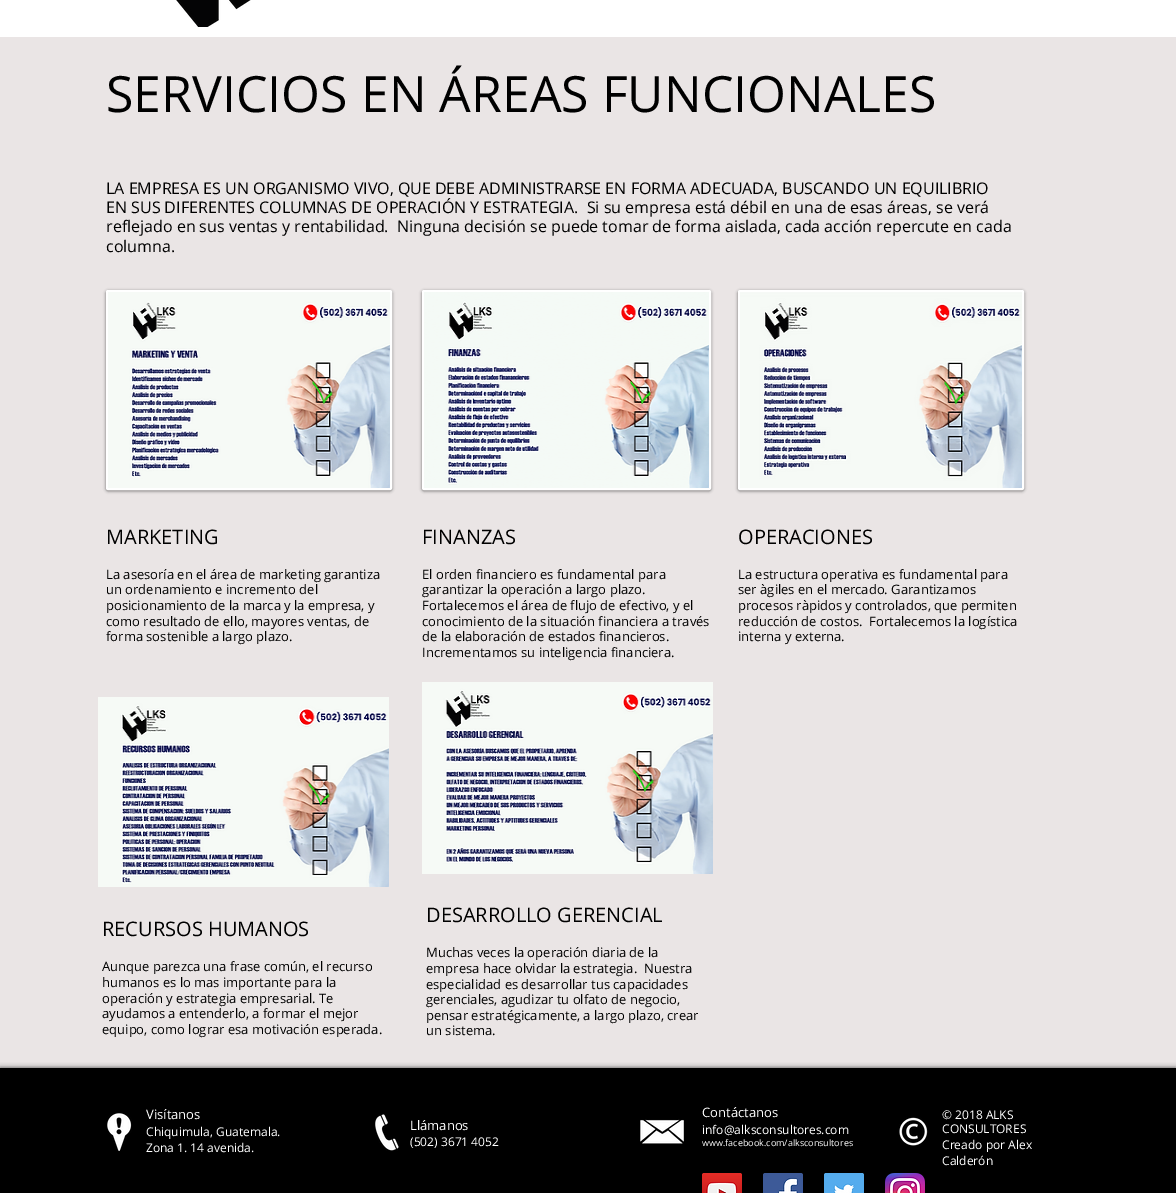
%!PS
<< /PageSize [1176 1193] /PageUsesTransparency true >> setpagedevice
/st/stroke load def
/lw/setlinewidth load def
/co { dup -16 bitshift 255 div exch dup -8 bitshift 255 and 255 div exch 255 and 255 div setrgbcolor } def
/fn { [ exch dup neg 0 0 3 -1 roll 0 0 ] selectfont } def
/tx { co fn moveto show } def
/bx { co rectfill } def
/al { dup .setfillconstantalpha .setstrokeconstantalpha } def
/rr { 5 dict begin { /r /h /w /y /x } { exch def } forall
  x r add y moveto x w add y 2 copy h add r arct x w add y h add x 1 index r arct
  x y h add x y r arct x y 2 copy exch w add exch r arct closepath end } def
/sh { 12 dict begin { /a /b /q /h /w /y /x } { exch def } forall gsave /was 0 def
  9 -2 -9 { dup b mul 4 div /e exch def 1 sub .425 mul 2.718 exch exp 1 add a .99 .min exch div /now exch def
    1 1 now sub 1 was sub div sub al /was now def
    w h .min e 2 mul add 0 gt { x e sub y e sub w e 2 mul add h e 2 mul add
      q e add b .6 mul add w h .min 2 div e add .min 0 .max rr fill } if } for grestore end } def
/im { 5 dict begin { /h /w /y /x /name } { exch def } forall
  gsave x y translate w h scale
  w h 8 [w 0 0 h 0 0] name (r) file false 3 colorimage grestore end } def
0 .pushpdf14devicefilter
0 1193 translate 1 -1 scale
4 setmiterlimit
0 0 1176 1193 16#EAE5E5 bx
0 0 1176 37 16#FFFFFF bx
(media/1.raw) 176 0 75 27 im
16#000000 co
106 291 286 200 2 1.5 .5 sh
16#FFFFFF co
2 lw
107 291 284 198 1 rr st
(media/2.raw) 108 292 282 196 im
16#000000 co
422 291 289 200 2 1.5 .5 sh
16#FFFFFF co
423 291 287 198 1 rr st
(media/3.raw) 424 292 285 196 im
16#000000 co
738 291 286 200 2 1.5 .5 sh
16#FFFFFF co
739 291 284 198 1 rr st
(media/4.raw) 740 292 282 196 im
(media/5.raw) 98 697 291 190 im
(media/6.raw) 422 682 291 192 im
16#000000 co
0 1068 1176 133 0 2.5 .7 sh
0 1068 1176 125 16#000000 bx
(media/7.raw) 107 1113 25 38 im
(media/8.raw) 375 1114 24 37 im
(media/9.raw) 640 1119 44 25 im
(media/10.raw) 899 1117 29 29 im
(media/11.raw) 702 1173 40 20 im
(media/12.raw) 763 1173 40 20 im
(media/13.raw) 824 1173 40 20 im
(media/14.raw) 885 1173 40 20 im
(SERVICIOS EN ÁREAS FUNCIONALES) 106 112 /OpenSans-Regular 50 16#000000 tx
(LA EMPRESA ES UN ORGANISMO VIVO, QUE DEBE ADMINISTRARSE EN FORMA ADECUADA, BUSCANDO UN EQUILIBRIO) 106 194 /OpenSans-Regular 16 16#000000 tx
(EN SUS DIFERENTES COLUMNAS DE OPERACIÓN Y ESTRATEGIA.  Si su empresa está débil en una de esas áreas, se verá) 106 213 /OpenSans-Regular 16 16#000000 tx
(reflejado en sus ventas y rentabilidad.  Ninguna decisión se puede tomar de forma aislada, cada acción repercute en cada) 106 232 /OpenSans-Regular 16 16#000000 tx
(columna.) 106 252 /OpenSans-Regular 16 16#000000 tx
(MARKETING) 106 544 /OpenSans-Regular 20 16#000000 tx
(La asesoría en el área de marketing garantiza) 106 579 /OpenSans-Regular 13 16#000000 tx
(un ordenamiento e incremento del) 106 594 /OpenSans-Regular 13 16#000000 tx
(posicionamiento de la marca y la empresa, y) 106 610 /OpenSans-Regular 13 16#000000 tx
(como resultado de ello, mayores ventas, de) 106 626 /OpenSans-Regular 13 16#000000 tx
(forma sostenible a largo plazo.) 106 641 /OpenSans-Regular 13 16#000000 tx
(FINANZAS) 422 544 /OpenSans-Regular 20 16#000000 tx
(El orden financiero es fundamental para) 422 579 /OpenSans-Regular 13 16#000000 tx
(garantizar la operación a largo plazo.) 422 594 /OpenSans-Regular 13 16#000000 tx
(Fortalecemos el área de flujo de efectivo, y el) 422 610 /OpenSans-Regular 13 16#000000 tx
(conocimiento de la situación financiera a través) 422 626 /OpenSans-Regular 13 16#000000 tx
(de la elaboración de estados financieros.) 422 641 /OpenSans-Regular 13 16#000000 tx
(Incrementamos su inteligencia financiera.) 422 657 /OpenSans-Regular 13 16#000000 tx
(OPERACIONES) 738 544 /OpenSans-Regular 20 16#000000 tx
(La estructura operativa es fundamental para) 738 579 /OpenSans-Regular 13 16#000000 tx
(ser àgiles en el mercado. Garantizamos) 738 594 /OpenSans-Regular 13 16#000000 tx
(procesos ràpidos y controlados, que permiten) 738 610 /OpenSans-Regular 13 16#000000 tx
(reducción de costos.  Fortalecemos la logística) 738 626 /OpenSans-Regular 13 16#000000 tx
(interna y externa.) 738 641 /OpenSans-Regular 13 16#000000 tx
(RECURSOS HUMANOS) 102 936 /OpenSans-Regular 20 16#000000 tx
(Aunque parezca una frase común, el recurso) 102 971 /OpenSans-Regular 13 16#000000 tx
(humanos es lo mas importante para la) 102 987 /OpenSans-Regular 13 16#000000 tx
(operación y estrategia empresarial. Te) 102 1003 /OpenSans-Regular 13 16#000000 tx
(ayudamos a entenderlo, a formar el mejor) 102 1018 /OpenSans-Regular 13 16#000000 tx
(equipo, como lograr esa motivación esperada.) 102 1034 /OpenSans-Regular 13 16#000000 tx
(DESARROLLO GERENCIAL) 426 922 /OpenSans-Regular 20 16#000000 tx
(Muchas veces la operación diaria de la) 426 957 /OpenSans-Regular 13 16#000000 tx
(empresa hace olvidar la estrategia.  Nuestra) 426 973 /OpenSans-Regular 13 16#000000 tx
(especialidad es desarrollar tus capacidades) 426 989 /OpenSans-Regular 13 16#000000 tx
(gerenciales, agudizar tu olfato de negocio,) 426 1004 /OpenSans-Regular 13 16#000000 tx
(pensar estratégicamente, a largo plazo, crear) 426 1020 /OpenSans-Regular 13 16#000000 tx
(un sistema.) 426 1035 /OpenSans-Regular 13 16#000000 tx
(Visítanos) 146 1119 /OpenSans-Regular 13 16#FFFFFF tx
(Chiquimula, Guatemala.) 146 1136 /OpenSans-Regular 12 16#FFFFFF tx
(Zona 1. 14 avenida.) 146 1152 /OpenSans-Regular 12 16#FFFFFF tx
(Llámanos) 410 1130 /OpenSans-Regular 13 16#FFFFFF tx
(\(502\) 3671 4052) 410 1146 /OpenSans-Regular 12 16#FFFFFF tx
(Contáctanos) 702 1117 /OpenSans-Regular 13 16#FFFFFF tx
(info@alksconsultores.com) 702 1134 /OpenSans-Regular 12 16#FFFFFF tx
(www.facebook.com/alksconsultores) 702 1146 /OpenSans-Regular 9 16#FFFFFF tx
(© 2018 ALKS) 942 1119 /OpenSans-Regular 12 16#FFFFFF tx
(CONSULTORES) 942 1133 /OpenSans-Regular 12 16#FFFFFF tx
(Creado por Alex) 942 1149 /OpenSans-Regular 12 16#FFFFFF tx
(Calderón) 942 1165 /OpenSans-Regular 12 16#FFFFFF tx
.poppdf14devicefilter showpage
